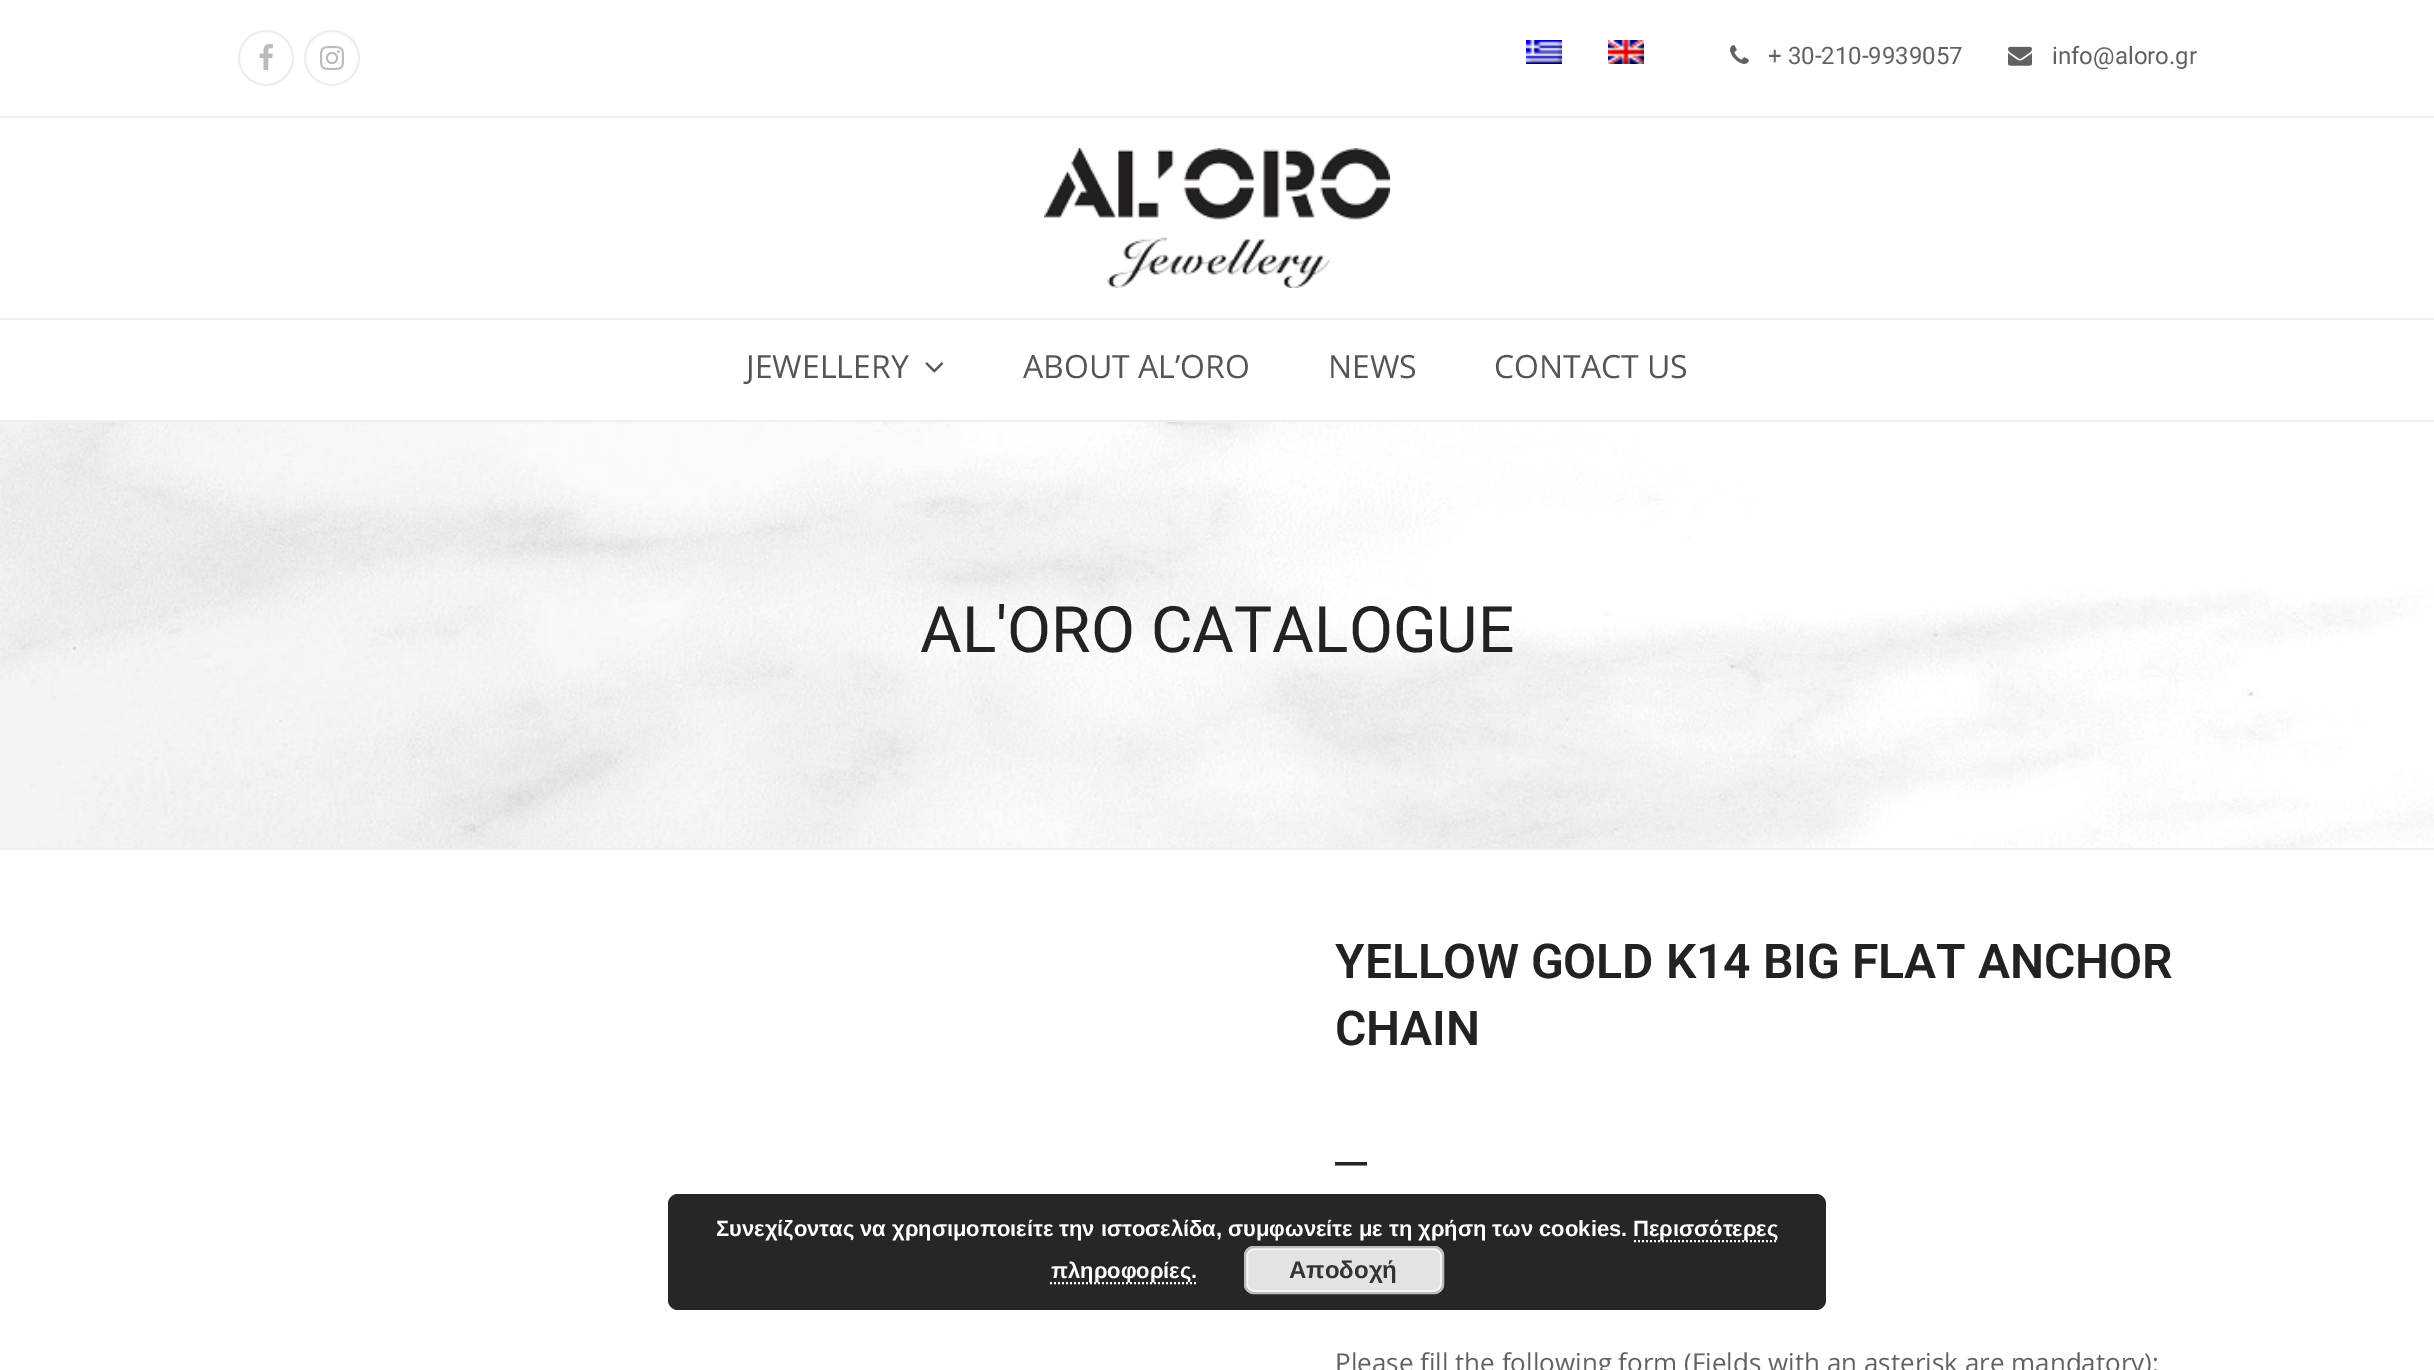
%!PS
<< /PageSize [2434 1370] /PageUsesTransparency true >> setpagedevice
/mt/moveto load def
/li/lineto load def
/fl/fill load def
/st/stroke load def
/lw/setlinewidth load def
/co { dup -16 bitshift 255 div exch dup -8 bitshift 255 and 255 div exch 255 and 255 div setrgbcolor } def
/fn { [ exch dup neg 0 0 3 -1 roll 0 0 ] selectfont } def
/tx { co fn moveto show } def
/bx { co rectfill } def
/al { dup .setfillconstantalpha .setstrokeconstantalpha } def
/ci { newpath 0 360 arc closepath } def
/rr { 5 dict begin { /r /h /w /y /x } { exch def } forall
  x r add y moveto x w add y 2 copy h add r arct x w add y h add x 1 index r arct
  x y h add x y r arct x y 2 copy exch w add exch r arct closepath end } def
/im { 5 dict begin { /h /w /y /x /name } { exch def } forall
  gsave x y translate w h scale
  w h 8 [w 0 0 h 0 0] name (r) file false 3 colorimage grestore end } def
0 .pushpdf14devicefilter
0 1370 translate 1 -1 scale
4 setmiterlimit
0 0 2434 1370 16#FFFFFF bx
0 116 2434 2 16#EEEEEE bx
2 lw
266 58 27 ci st
(media/1.raw) 259 44 14 26 im
332 58 27 ci st
(media/2.raw) 320 46 24 24 im
(media/3.raw) 1526 40 36 24 im
(media/4.raw) 1608 40 36 24 im
(media/5.raw) 1730 45 19 19 im
(media/6.raw) 2008 46 24 20 im
(media/7.raw) 1044 148 346 140 im
0 318 2434 2 16#EEEEEE bx
(media/8.raw) 925 362 19 11 im
(media/9.raw) 0 422 2434 426 im
0 420 2434 2 16#EEEEEE bx
0 848 2434 2 16#EEEEEE bx
0.85 al
16#000000 co
668 1194 1158 116 10 rr fl
1 al
16#FFFFFF co
[2 2] 0 setdash
1634 1241 mt 1778 1241 li st
1050 1283 mt 1198 1283 li st
16#E3E3E3 co
1244 1246 200 48 10 rr fl
16#F6F6F6 co
[] 0 setdash
1247 1249 194 42 7 rr st
16#BBBBBB co
1245 1247 198 46 9 rr st
(+ 30-210-9939057) 1768 64 /Roboto-Regular 24 16#616161 tx
(info@aloro.gr) 2052 64 /Roboto-Regular 24 16#616161 tx
(JEWELLERY) 746 378 /OpenSans-Regular 32 16#555555 tx
(ABOUT AL’ORO) 1023 378 /OpenSans-Regular 32 16#555555 tx
(NEWS) 1328 378 /OpenSans-Regular 32 16#555555 tx
(CONTACT US) 1494 378 /OpenSans-Regular 32 16#555555 tx
(AL'ORO CATALOGUE) 920 652 /Roboto-Regular 64 16#222222 tx
(YELLOW GOLD K14 BIG FLAT ANCHOR) 1335 978 /Roboto-SemiBold 48 16#222222 tx
(CHAIN) 1335 1045 /Roboto-SemiBold 48 16#222222 tx
(__) 1335 1162 /Roboto-SemiBold 36 16#222222 tx
(Please fill the following form \(Fields with an asterisk are mandatory\):) 1335 1372 /OpenSans-Regular 26 16#616161 tx
(Συνεχίζοντας να χρησιμοποιείτε την ιστοσελίδα, συμφωνείτε με τη χρήση των cookies.) 716 1236 /LiberationSans-Bold 22 16#FFFFFF tx
(Περισσότερες) 1633 1236 /LiberationSans-Bold 22 16#FFFFFF tx
(πληροφορίες.) 1051 1278 /LiberationSans-Bold 22 16#FFFFFF tx
(Αποδοχή) 1289 1278 /LiberationSans-Bold 24 16#333333 tx
.poppdf14devicefilter showpage
